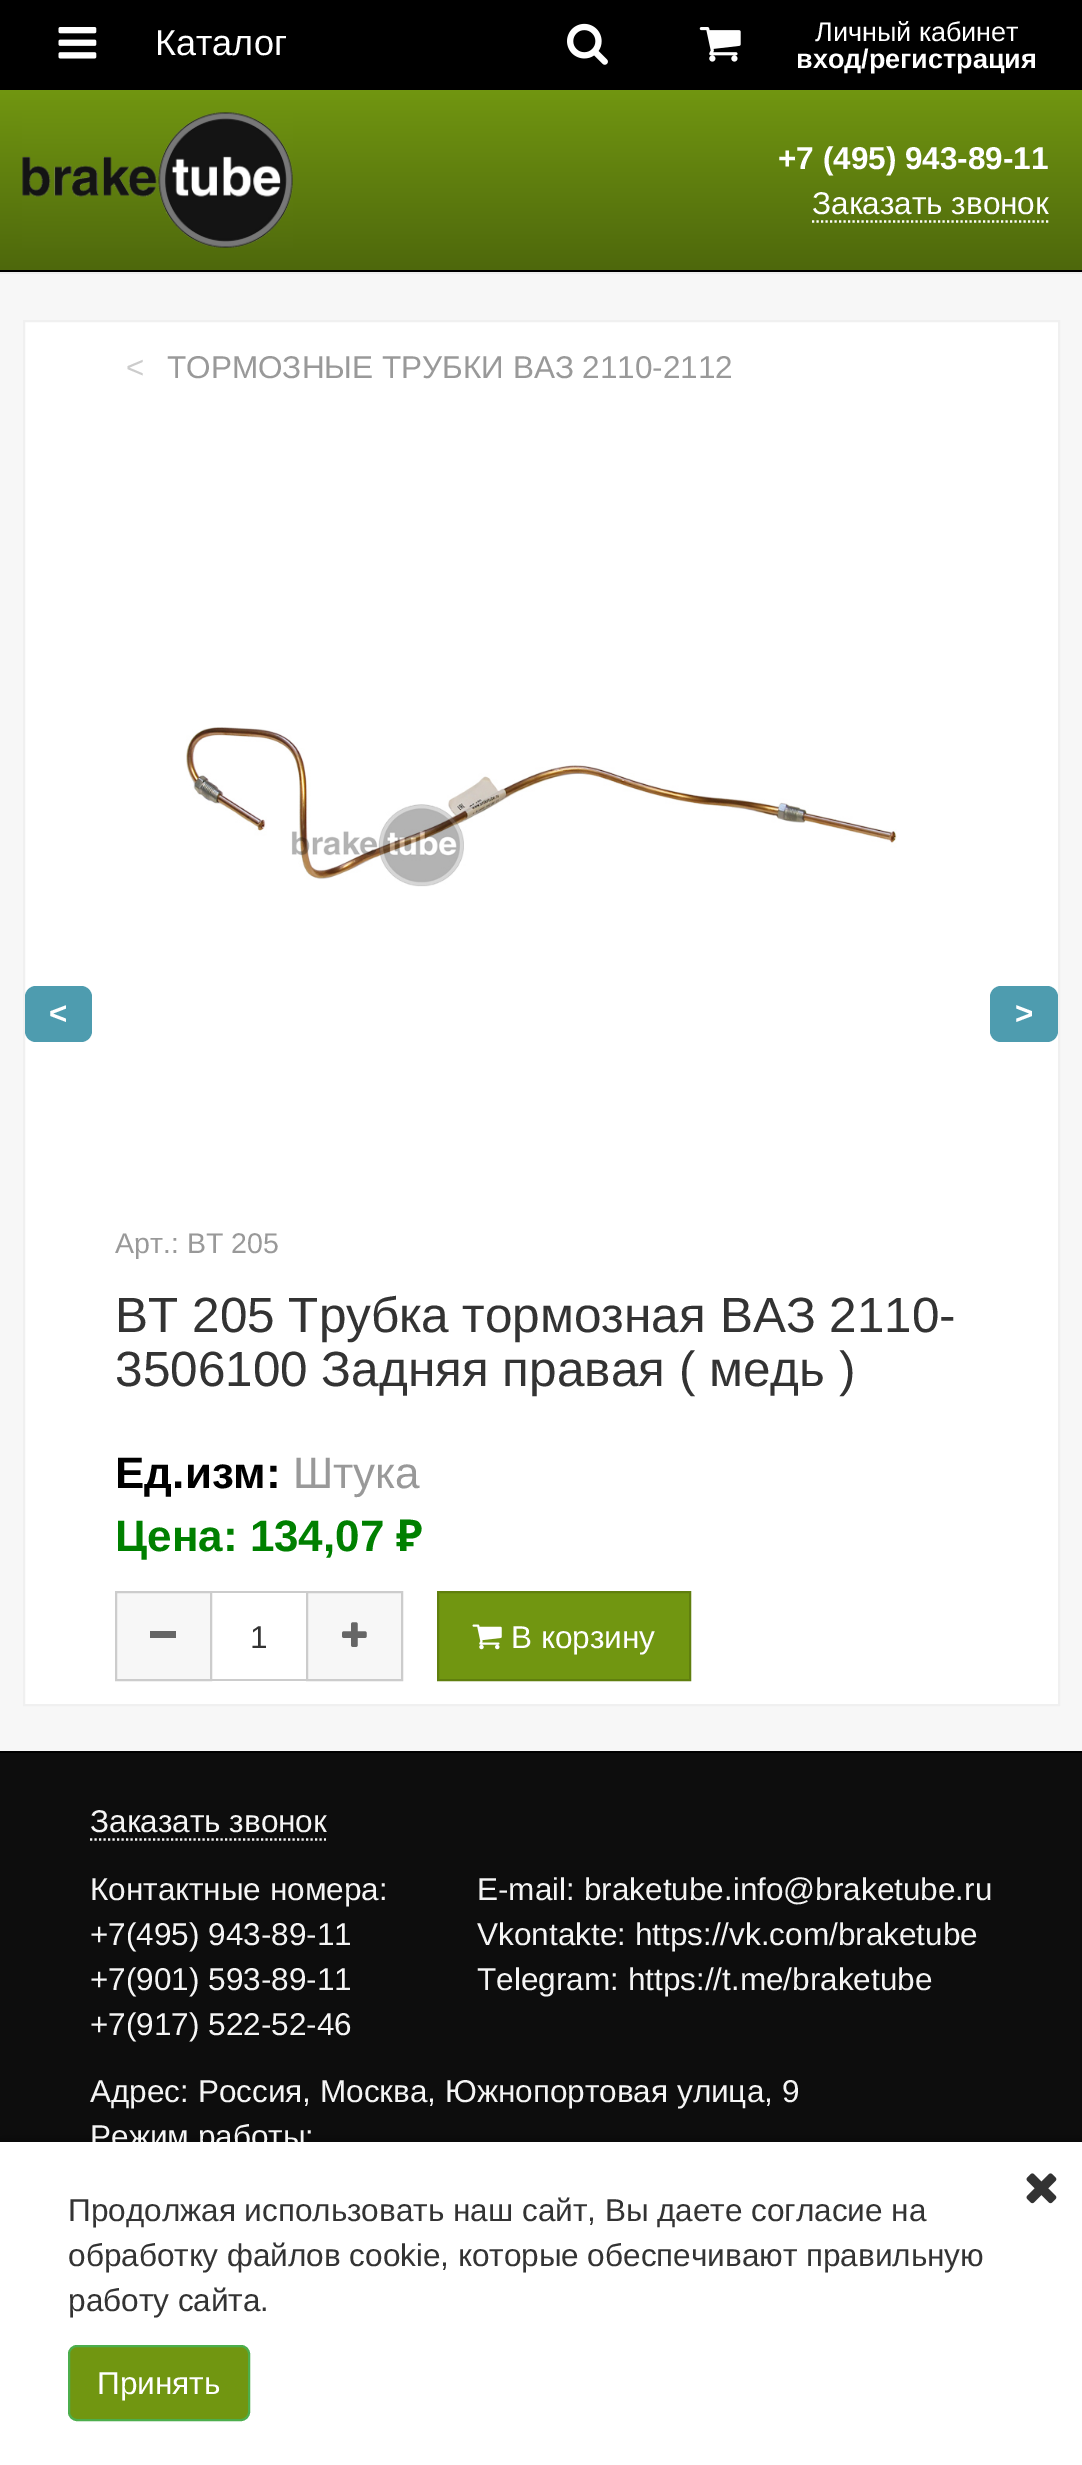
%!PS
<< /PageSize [1082 2465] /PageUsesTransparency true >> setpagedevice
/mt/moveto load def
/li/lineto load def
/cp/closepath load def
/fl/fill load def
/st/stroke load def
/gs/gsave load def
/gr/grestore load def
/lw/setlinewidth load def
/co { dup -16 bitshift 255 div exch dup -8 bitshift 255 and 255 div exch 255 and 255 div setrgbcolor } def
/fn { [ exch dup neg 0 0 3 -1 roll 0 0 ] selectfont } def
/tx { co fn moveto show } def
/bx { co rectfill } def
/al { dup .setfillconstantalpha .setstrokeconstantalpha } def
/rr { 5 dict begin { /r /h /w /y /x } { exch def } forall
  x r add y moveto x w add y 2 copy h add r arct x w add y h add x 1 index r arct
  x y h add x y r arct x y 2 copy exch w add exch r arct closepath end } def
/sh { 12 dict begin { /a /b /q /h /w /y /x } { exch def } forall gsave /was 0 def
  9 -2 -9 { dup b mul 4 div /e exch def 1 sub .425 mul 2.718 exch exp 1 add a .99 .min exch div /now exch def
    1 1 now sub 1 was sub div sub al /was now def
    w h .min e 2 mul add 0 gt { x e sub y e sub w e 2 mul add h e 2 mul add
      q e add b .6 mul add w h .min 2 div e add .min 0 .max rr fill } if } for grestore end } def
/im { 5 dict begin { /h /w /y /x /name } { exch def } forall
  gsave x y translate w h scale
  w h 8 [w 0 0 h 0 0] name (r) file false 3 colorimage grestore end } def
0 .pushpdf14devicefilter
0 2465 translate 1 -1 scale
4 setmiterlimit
0 0 1082 2465 16#F7F7F7 bx
0 272 1082 2 16#EEEEEE bx
0 0 1082 90 16#000000 bx
(media/1.raw) 58 27 39 32 im
(media/2.raw) 567 23 41 42 im
(media/3.raw) 699 27 42 35 im
gs 0 90 mt 1082 90 li 1082 270 li 0 270 li cp clip newpath
<< /ShadingType 2 /ColorSpace /DeviceRGB /Coords [541 90 541 270] /Extend [true true] /Function << /FunctionType 2 /Domain [0 1] /C0 [.443 .588 .067] /C1 [.306 .408 .047] /N 1 >> >> shfill gr
0 270 1082 2 16#000000 bx
(media/4.raw) 22 112 271 136 im
16#FFFFFF co
2.2 lw
[2.25 2.25] 0 setdash
812 221.5 mt 1048.5 221.5 li st
24 321 mt 1059 321 li 1059 1705 li 24 1705 li cp gs fl gr
16#F0F0F0 co
2 lw
[] 0 setdash
st
(media/5.raw) 186 727 711 160 im
16#4E9CAF co
25 986 67 56 11 rr fl
990 986 68 56 11 rr fl
16#F7F7F7 co
116 1592 mt 211 1592 li 211 1680 li 116 1680 li cp gs fl gr
16#CCCCCC co
st
150 1631 26 7 16#666666 bx
212 1591 94 2 16#CCCCCC bx
212 1679 94 2 16#CCCCCC bx
16#F7F7F7 co
307 1592 mt 402 1592 li 402 1680 li 307 1680 li cp gs fl gr
16#CCCCCC co
st
(media/6.raw) 342 1622 25 25 im
16#719611 co
438 1592 mt 690 1592 li 690 1680 li 438 1680 li cp gs fl gr
16#607F0E co
st
(media/7.raw) 472 1624 30 26 im
0 1753 1082 389 16#0D0D0D bx
0 1751 1082 2 16#000000 bx
16#F5F5F5 co
2.2 lw
[2.25 2.25] 0 setdash
90 1839.5 mt 326 1839.5 li st
16#000000 co
0 2142 1082 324 0 5.5 .5 sh
(Каталог) 155 55 /LiberationSans-Regular 36 16#FFFFFF tx
(Личный кабинет) 815 41 /LiberationSans-Regular 27 16#FFFFFF tx
(вход/регистрация) 796 68 /LiberationSans-Bold 27 16#FFFFFF tx
(+7 \(495\) 943-89-11) 778 169 /LiberationSans-Bold 31.5 16#FFFFFF tx
(Заказать звонок) 812 214 /LiberationSans-Regular 31.5 16#FFFFFF tx
(<) 126 378 /LiberationSans-Regular 31.5 16#CCCCCC tx
(ТОРМОЗНЫЕ ТРУБКИ ВАЗ 2110-2112) 167 378 /LiberationSans-Regular 31.5 16#999999 tx
(<) 49 1024 /LiberationSans-Bold 31.5 16#FFFFFF tx
(>) 1015 1024 /LiberationSans-Bold 31.5 16#FFFFFF tx
(Арт.: ВТ 205) 115 1253 /LiberationSans-Regular 28.5 16#999999 tx
(ВТ 205 Трубка тормозная ВАЗ 2110-) 115 1332 /LiberationSans-Regular 49.5 16#333333 tx
(3506100 Задняя правая \( медь \)) 115 1386 /LiberationSans-Regular 49.5 16#333333 tx
(Ед.изм:) 115 1488 /LiberationSans-Bold 44 16#000000 tx
(Штука) 293 1488 /LiberationSans-Regular 44 16#999999 tx
(Цена: 134,07) 115 1551 /LiberationSans-Bold 44 16#008000 tx
(₽) 396 1551 /NotoSans-Bold 44 16#008000 tx
(1) 250 1648 /LiberationSans-Regular 31.5 16#333333 tx
(В корзину) 511 1648 /LiberationSans-Regular 31.5 16#FFFFFF tx
(Заказать звонок) 90 1832 /LiberationSans-Regular 31.5 16#F5F5F5 tx
(Контактные номера:) 90 1900 /LiberationSans-Regular 31.5 16#F5F5F5 tx
(+7\(495\) 943-89-11) 90 1945 /LiberationSans-Regular 31.5 16#F5F5F5 tx
(+7\(901\) 593-89-11) 90 1990 /LiberationSans-Regular 31.5 16#F5F5F5 tx
(+7\(917\) 522-52-46) 90 2035 /LiberationSans-Regular 31.5 16#F5F5F5 tx
(E-mail: braketube.info@braketube.ru) 477 1900 /LiberationSans-Regular 31.5 16#F5F5F5 tx
(Vkontakte: https://vk.com/braketube) 477 1945 /LiberationSans-Regular 31.5 16#F5F5F5 tx
(Telegram: https://t.me/braketube) 477 1990 /LiberationSans-Regular 31.5 16#F5F5F5 tx
(Адрес: Россия, Москва, Южнопортовая улица, 9) 90 2102 /LiberationSans-Regular 31.5 16#F5F5F5 tx
(Режим работы:) 90 2147 /LiberationSans-Regular 31.5 16#F5F5F5 tx
0 2142 1082 323 16#FFFFFF bx
(media/8.raw) 1026 2173 31 31 im
(Продолжая использовать наш сайт, Вы даете согласие на) 68 2221 /LiberationSans-Regular 31.5 16#333333 tx
(обработку файлов cookie, которые обеспечивают правильную) 68 2266 /LiberationSans-Regular 31.5 16#333333 tx
(работу сайта.) 68 2311 /LiberationSans-Regular 31.5 16#333333 tx
16#719611 co
69 2346 180 74 8 rr gs fl gr
16#4CAE4C co
2 lw
[] 0 setdash
st
(Принять) 97 2394 /LiberationSans-Regular 31.5 16#FFFFFF tx
.poppdf14devicefilter showpage
